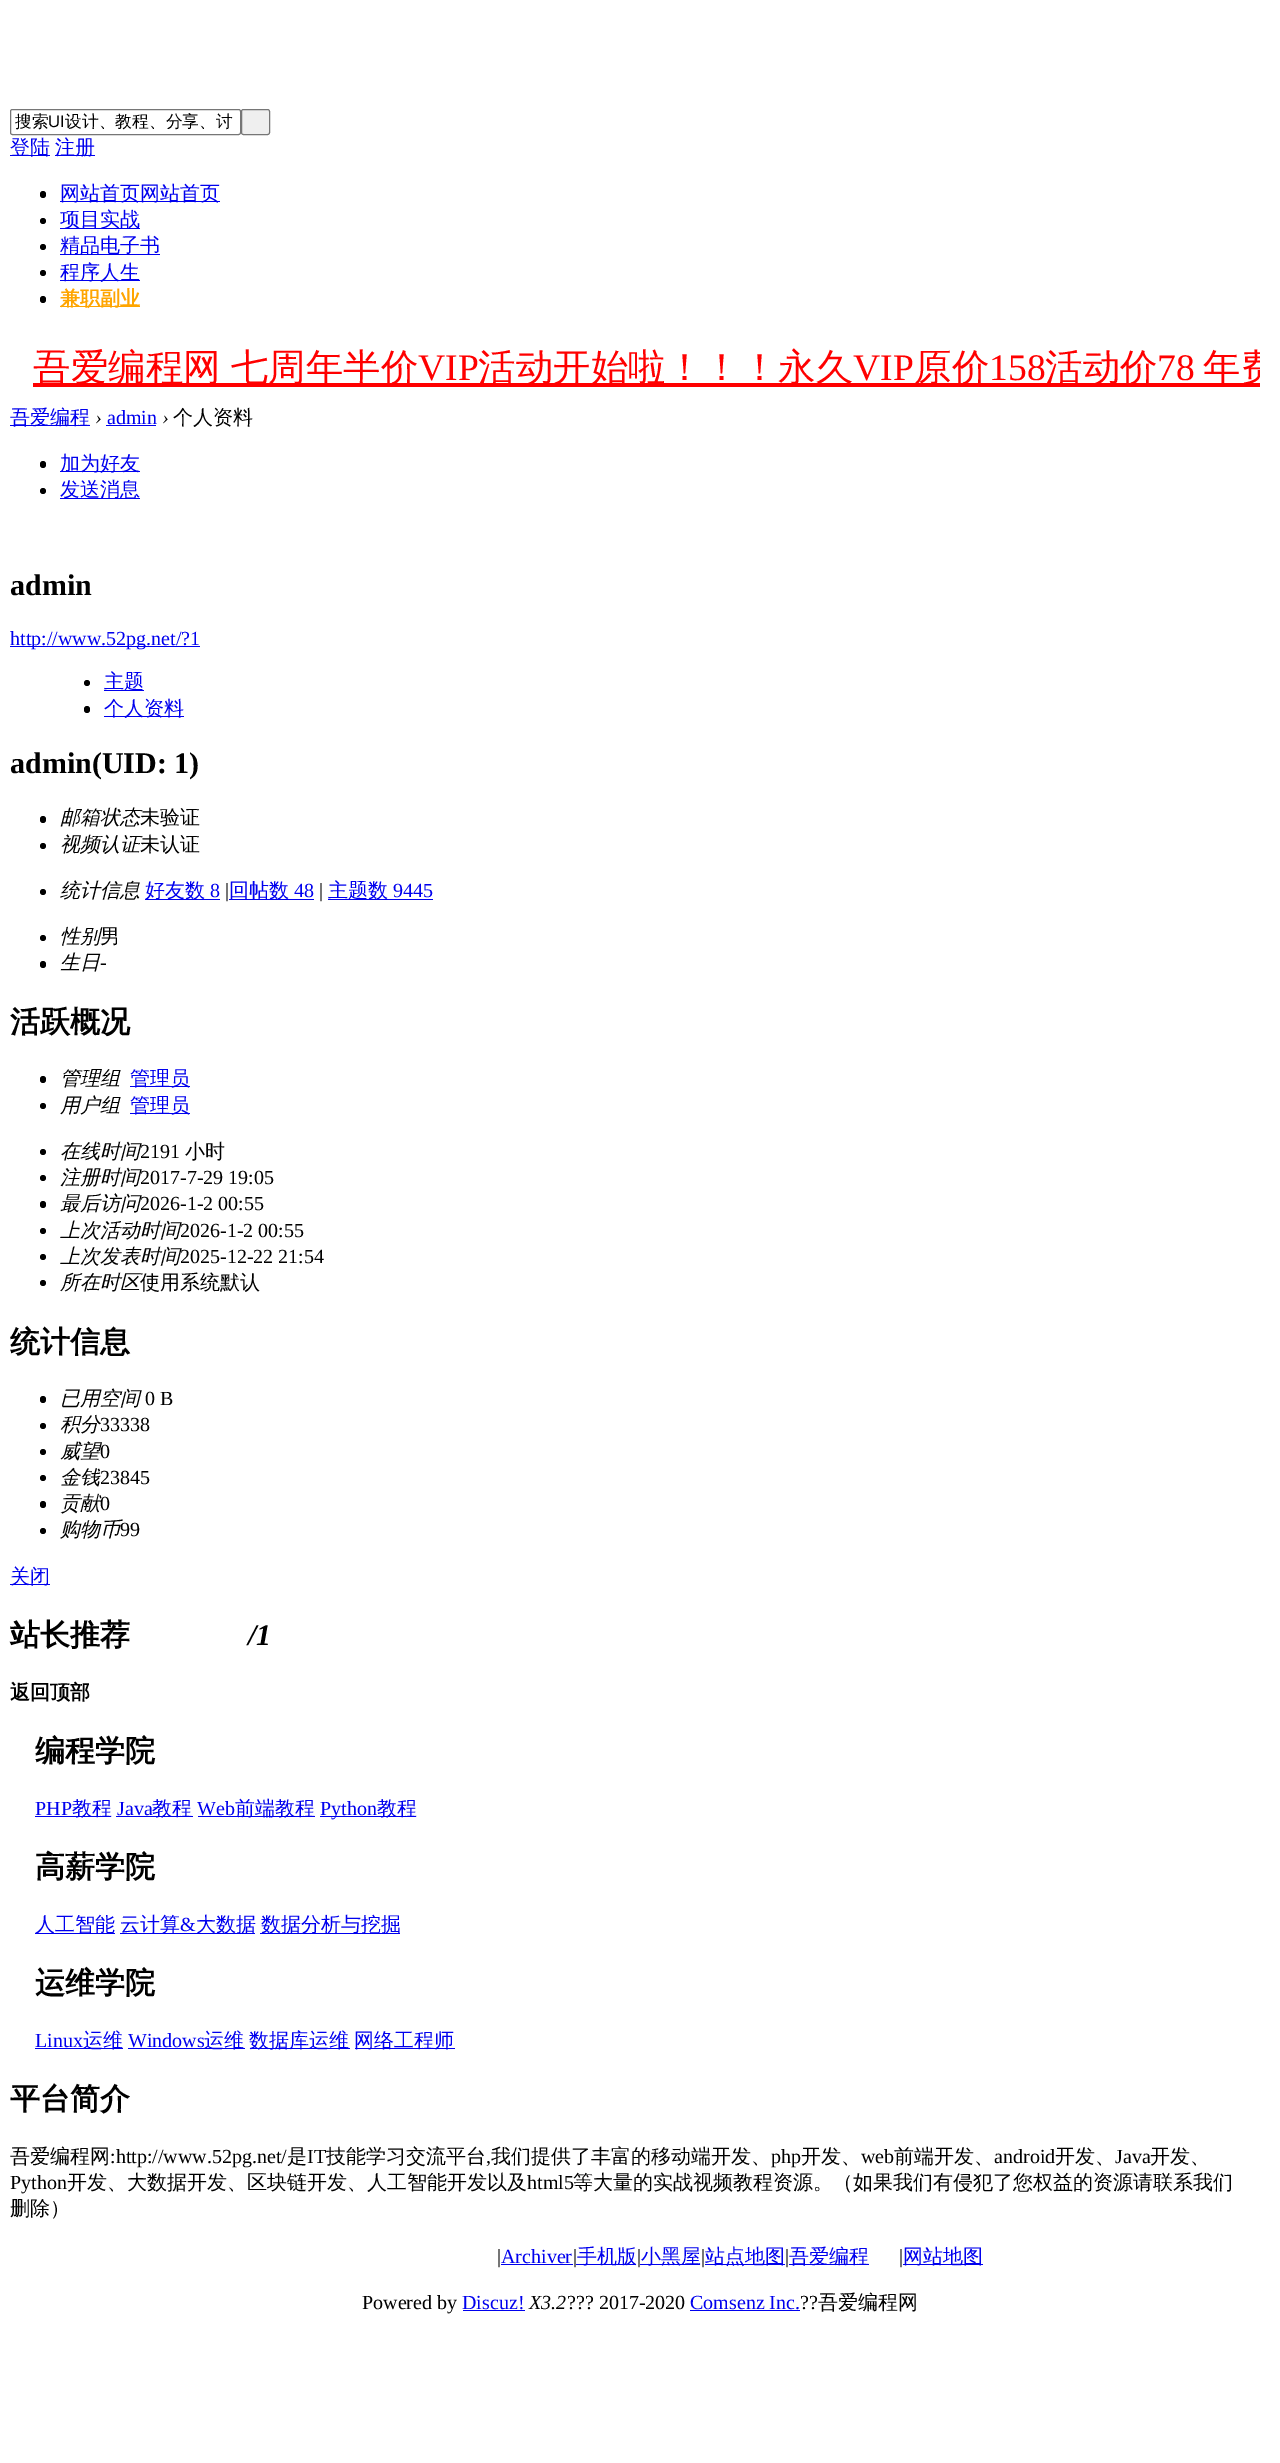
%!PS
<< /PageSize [1280 2463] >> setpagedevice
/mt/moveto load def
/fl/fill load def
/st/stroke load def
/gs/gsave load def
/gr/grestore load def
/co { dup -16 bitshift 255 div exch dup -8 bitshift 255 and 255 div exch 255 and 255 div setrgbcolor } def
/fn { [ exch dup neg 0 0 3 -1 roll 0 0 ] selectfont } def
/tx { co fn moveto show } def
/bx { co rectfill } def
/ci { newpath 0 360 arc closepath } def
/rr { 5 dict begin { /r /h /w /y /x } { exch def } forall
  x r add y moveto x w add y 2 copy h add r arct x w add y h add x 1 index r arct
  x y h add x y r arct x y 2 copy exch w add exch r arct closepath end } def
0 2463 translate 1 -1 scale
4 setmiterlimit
0 0 1280 2463 16#FFFFFF bx
16#767676 co
10.5 109.5 230 25 2 rr st
16#EFEFEF co
241.5 109.5 28 25 2 rr gs fl gr
16#767676 co
st
10 155 40 1 16#0000EE bx
55 155 40 1 16#0000EE bx
16#000000 co
40 191 6 7 3 rr fl
60 201 160 1 16#0000EE bx
16#000000 co
43 221 3 ci fl
60 228 80 1 16#0000EE bx
16#000000 co
43 247 3 ci fl
60 254 100 1 16#0000EE bx
16#000000 co
43 273 3 ci fl
60 280 80 1 16#0000EE bx
16#000000 co
40 296 6 7 3 rr fl
60 306 80 1 16#FFA500 bx
33 383 1227 4 16#FF0000 bx
10 425 80 1 16#0000EE bx
106 425 50 1 16#0000EE bx
16#000000 co
40 461 6 7 3 rr fl
60 471 80 1 16#0000EE bx
16#000000 co
43 491 3 ci fl
60 498 80 1 16#0000EE bx
10 646 190 1 16#0000EE bx
16#000000 co
87 683 3 ci fl
104 690 40 1 16#0000EE bx
16#000000 co
84 706 6 7 3 rr fl
104 716 80 1 16#0000EE bx
16#000000 co
40 816 6 7 3 rr fl
43 846 3 ci fl
43 892 3 ci fl
145 899 75 1 16#0000EE bx
229 899 85 1 16#0000EE bx
328 899 105 1 16#0000EE bx
16#000000 co
43 938 3 ci fl
40 961 6 7 3 rr fl
40 1076 6 7 3 rr fl
130 1086 60 1 16#0000EE bx
16#000000 co
43 1106 3 ci fl
130 1113 60 1 16#0000EE bx
16#000000 co
43 1152 3 ci fl
43 1178 3 ci fl
40 1201 6 7 3 rr fl
43 1231 3 ci fl
43 1257 3 ci fl
43 1283 3 ci fl
40 1396 6 7 3 rr fl
43 1426 3 ci fl
43 1452 3 ci fl
43 1478 3 ci fl
40 1501 6 7 3 rr fl
43 1531 3 ci fl
10 1584 40 1 16#0000EE bx
35 1816 76 1 16#0000EE bx
116 1816 77 1 16#0000EE bx
198 1816 117 1 16#0000EE bx
320 1816 96 1 16#0000EE bx
35 1933 80 1 16#0000EE bx
120 1933 135 1 16#0000EE bx
260 1933 140 1 16#0000EE bx
35 2048 88 1 16#0000EE bx
128 2048 117 1 16#0000EE bx
250 2048 100 1 16#0000EE bx
355 2048 100 1 16#0000EE bx
501 2264 72 1 16#0000EE bx
576 2264 60 1 16#0000EE bx
640 2264 60 1 16#0000EE bx
705 2264 80 1 16#0000EE bx
789 2264 80 1 16#0000EE bx
903 2264 80 1 16#0000EE bx
463 2310 62 1 16#0000EE bx
690 2310 110 1 16#0000EE bx
(搜索) 15 127 /WenQuanYiZenHei-Medium 16.75 16#000000 tx
(UI) 48 127 /LiberationSans-Regular 16.75 16#000000 tx
(设计、教程、分享、讨) 65 127 /WenQuanYiZenHei-Medium 16.75 16#000000 tx
(登陆) 10 154 /WenQuanYiZenHei-Medium 20 16#0000EE tx
(注册) 55 154 /WenQuanYiZenHei-Medium 20 16#0000EE tx
(网站首页网站首页) 60 200 /WenQuanYiZenHei-Medium 20 16#0000EE tx
(项目实战) 60 226 /WenQuanYiZenHei-Medium 20 16#0000EE tx
(精品电子书) 60 252 /WenQuanYiZenHei-Medium 20 16#0000EE tx
(程序人生) 60 279 /WenQuanYiZenHei-Medium 20 16#0000EE tx
(兼职副业) 60 305 /WenQuanYiZenHei-Bold 20 16#FFA500 tx
/WenQuanYiZenHei-Medium 37.5 fn
16#FF0000 co
33 380 mt -1 0 32 (吾爱编程网 七周年半价) widthshow
(VIP) 418 380 /LiberationSerif-Regular 37.5 16#FF0000 tx
(活动开始啦！！！永久) 478 380 /WenQuanYiZenHei-Medium 37.5 16#FF0000 tx
(VIP) 853 380 /LiberationSerif-Regular 37.5 16#FF0000 tx
(原价) 914 380 /WenQuanYiZenHei-Medium 37.5 16#FF0000 tx
(158) 989 380 /LiberationSerif-Regular 37.5 16#FF0000 tx
(活动价) 1045 380 /WenQuanYiZenHei-Medium 37.5 16#FF0000 tx
(78) 1157 380 /LiberationSerif-Regular 37.5 16#FF0000 tx
gs
20 343 1240 51 rectclip
(年费) 1203 380 /WenQuanYiZenHei-Medium 37.5 16#FF0000 tx
gr
(吾爱编程) 10 424 /WenQuanYiZenHei-Medium 20 16#0000EE tx
(›) 95 424 /LiberationSerif-Italic 20 16#000000 tx
(admin) 107 424 /LiberationSerif-Regular 20 16#0000EE tx
(›) 162 424 /LiberationSerif-Italic 20 16#000000 tx
(个人资料) 173 424 /WenQuanYiZenHei-Medium 20 16#000000 tx
(加为好友) 60 470 /WenQuanYiZenHei-Medium 20 16#0000EE tx
(发送消息) 60 496 /WenQuanYiZenHei-Medium 20 16#0000EE tx
(admin) 10 595 /LiberationSerif-Bold 30 16#000000 tx
(http://www.52pg.net/?1) 10 645 /LiberationSerif-Regular 20 16#0000EE tx
(主题) 104 688 /WenQuanYiZenHei-Medium 20 16#0000EE tx
(个人资料) 104 715 /WenQuanYiZenHei-Medium 20 16#0000EE tx
(admin\(UID: 1\)) 10 773 /LiberationSerif-Bold 30 16#000000 tx
(邮箱状态) 60 824 /WenQuanYiZenHei-MediumItalic 20 16#000000 tx
(未验证) 140 824 /WenQuanYiZenHei-Medium 20 16#000000 tx
(视频认证) 60 851 /WenQuanYiZenHei-MediumItalic 20 16#000000 tx
(未认证) 140 851 /WenQuanYiZenHei-Medium 20 16#000000 tx
(统计信息) 60 897 /WenQuanYiZenHei-MediumItalic 20 16#000000 tx
(好友数) 145 897 /WenQuanYiZenHei-Medium 20 16#0000EE tx
(8) 210 897 /LiberationSerif-Regular 20 16#0000EE tx
(|) 225 897 /LiberationSerif-Regular 20 16#000000 tx
(回帖数) 229 897 /WenQuanYiZenHei-Medium 20 16#0000EE tx
(48) 294 897 /LiberationSerif-Regular 20 16#0000EE tx
(|) 319 897 /LiberationSerif-Regular 20 16#000000 tx
(主题数) 328 897 /WenQuanYiZenHei-Medium 20 16#0000EE tx
(9445) 393 897 /LiberationSerif-Regular 20 16#0000EE tx
(性别) 60 943 /WenQuanYiZenHei-MediumItalic 20 16#000000 tx
(男) 100 943 /WenQuanYiZenHei-Medium 20 16#000000 tx
(生日) 60 969 /WenQuanYiZenHei-MediumItalic 20 16#000000 tx
(-) 100 969 /LiberationSerif-Regular 20 16#000000 tx
(活跃概况) 10 1032 /WenQuanYiZenHei-Bold 30 16#000000 tx
(管理组) 60 1085 /WenQuanYiZenHei-MediumItalic 20 16#000000 tx
(管理员) 130 1085 /WenQuanYiZenHei-Medium 20 16#0000EE tx
(用户组) 60 1112 /WenQuanYiZenHei-MediumItalic 20 16#000000 tx
(管理员) 130 1112 /WenQuanYiZenHei-Medium 20 16#0000EE tx
(在线时间) 60 1158 /WenQuanYiZenHei-MediumItalic 20 16#000000 tx
(2191) 140 1158 /LiberationSerif-Regular 20 16#000000 tx
(小时) 185 1158 /WenQuanYiZenHei-Medium 20 16#000000 tx
(注册时间) 60 1184 /WenQuanYiZenHei-MediumItalic 20 16#000000 tx
(2017-7-29 19:05) 140 1184 /LiberationSerif-Regular 20 16#000000 tx
(最后访问) 60 1210 /WenQuanYiZenHei-MediumItalic 20 16#000000 tx
(2026-1-2 00:55) 140 1210 /LiberationSerif-Regular 20 16#000000 tx
(上次活动时间) 60 1237 /WenQuanYiZenHei-MediumItalic 20 16#000000 tx
(2026-1-2 00:55) 180 1237 /LiberationSerif-Regular 20 16#000000 tx
(上次发表时间) 60 1263 /WenQuanYiZenHei-MediumItalic 20 16#000000 tx
(2025-12-22 21:54) 180 1263 /LiberationSerif-Regular 20 16#000000 tx
(所在时区) 60 1289 /WenQuanYiZenHei-MediumItalic 20 16#000000 tx
(使用系统默认) 140 1289 /WenQuanYiZenHei-Medium 20 16#000000 tx
(统计信息) 10 1352 /WenQuanYiZenHei-Bold 30 16#000000 tx
(已用空间) 60 1405 /WenQuanYiZenHei-MediumItalic 20 16#000000 tx
(0 B) 145 1405 /LiberationSerif-Regular 20 16#000000 tx
(积分) 60 1431 /WenQuanYiZenHei-MediumItalic 20 16#000000 tx
(33338) 100 1431 /LiberationSerif-Regular 20 16#000000 tx
(威望) 60 1458 /WenQuanYiZenHei-MediumItalic 20 16#000000 tx
(0) 100 1458 /LiberationSerif-Regular 20 16#000000 tx
(金钱) 60 1484 /WenQuanYiZenHei-MediumItalic 20 16#000000 tx
(23845) 100 1484 /LiberationSerif-Regular 20 16#000000 tx
(贡献) 60 1510 /WenQuanYiZenHei-MediumItalic 20 16#000000 tx
(0) 100 1510 /LiberationSerif-Regular 20 16#000000 tx
(购物币) 60 1536 /WenQuanYiZenHei-MediumItalic 20 16#000000 tx
(99) 120 1536 /LiberationSerif-Regular 20 16#000000 tx
(关闭) 10 1583 /WenQuanYiZenHei-Medium 20 16#0000EE tx
(站长推荐) 10 1645 /WenQuanYiZenHei-Bold 30 16#000000 tx
(/1) 248 1645 /LiberationSerif-BoldItalic 30 16#000000 tx
(返回顶部) 10 1699 /WenQuanYiZenHei-Bold 20 16#000000 tx
(编程学院) 35 1761 /WenQuanYiZenHei-Bold 30 16#000000 tx
(PHP) 35 1815 /LiberationSerif-Regular 20 16#0000EE tx
(教程) 72 1815 /WenQuanYiZenHei-Medium 20 16#0000EE tx
(Java) 117 1815 /LiberationSerif-Regular 20 16#0000EE tx
(教程) 152 1815 /WenQuanYiZenHei-Medium 20 16#0000EE tx
(Web) 197 1815 /LiberationSerif-Regular 20 16#0000EE tx
(前端教程) 235 1815 /WenQuanYiZenHei-Medium 20 16#0000EE tx
(Python) 320 1815 /LiberationSerif-Regular 20 16#0000EE tx
(教程) 377 1815 /WenQuanYiZenHei-Medium 20 16#0000EE tx
(高薪学院) 35 1877 /WenQuanYiZenHei-Bold 30 16#000000 tx
(人工智能) 35 1931 /WenQuanYiZenHei-Medium 20 16#0000EE tx
(云计算) 120 1931 /WenQuanYiZenHei-Medium 20 16#0000EE tx
(&) 180 1931 /LiberationSerif-Regular 20 16#0000EE tx
(大数据) 196 1931 /WenQuanYiZenHei-Medium 20 16#0000EE tx
(数据分析与挖掘) 261 1931 /WenQuanYiZenHei-Medium 20 16#0000EE tx
(运维学院) 35 1993 /WenQuanYiZenHei-Bold 30 16#000000 tx
(Linux) 35 2047 /LiberationSerif-Regular 20 16#0000EE tx
(运维) 83 2047 /WenQuanYiZenHei-Medium 20 16#0000EE tx
(Windows) 128 2047 /LiberationSerif-Regular 20 16#0000EE tx
(运维) 204 2047 /WenQuanYiZenHei-Medium 20 16#0000EE tx
(数据库运维) 249 2047 /WenQuanYiZenHei-Medium 20 16#0000EE tx
(网络工程师) 354 2047 /WenQuanYiZenHei-Medium 20 16#0000EE tx
(平台简介) 10 2109 /WenQuanYiZenHei-Bold 30 16#000000 tx
(吾爱编程网) 10 2163 /WenQuanYiZenHei-Medium 20 16#000000 tx
(:http://www.52pg.net/) 110 2163 /LiberationSerif-Regular 20 16#000000 tx
(是) 287 2163 /WenQuanYiZenHei-Medium 20 16#000000 tx
(IT) 307 2163 /LiberationSerif-Regular 20 16#000000 tx
(技能学习交流平台) 326 2163 /WenQuanYiZenHei-Medium 20 16#000000 tx
(,) 486 2163 /LiberationSerif-Regular 20 16#000000 tx
(我们提供了丰富的移动端开发、) 491 2163 /WenQuanYiZenHei-Medium 20 16#000000 tx
(php) 771 2163 /LiberationSerif-Regular 20 16#000000 tx
(开发、) 801 2163 /WenQuanYiZenHei-Medium 20 16#000000 tx
(web) 861 2163 /LiberationSerif-Regular 20 16#000000 tx
(前端开发、) 894 2163 /WenQuanYiZenHei-Medium 20 16#000000 tx
(android) 994 2163 /LiberationSerif-Regular 20 16#000000 tx
(开发、) 1055 2163 /WenQuanYiZenHei-Medium 20 16#000000 tx
(Java) 1115 2163 /LiberationSerif-Regular 20 16#000000 tx
(开发、) 1150 2163 /WenQuanYiZenHei-Medium 20 16#000000 tx
(Python) 10 2189 /LiberationSerif-Regular 20 16#000000 tx
(开发、大数据开发、区块链开发、人工智能开发以及) 67 2189 /WenQuanYiZenHei-Medium 20 16#000000 tx
(html5) 527 2189 /LiberationSerif-Regular 20 16#000000 tx
(等大量的实战视频教程资源。（如果我们有侵犯了您权益的资源请联系我们) 573 2189 /WenQuanYiZenHei-Medium 20 16#000000 tx
(删除）) 10 2215 /WenQuanYiZenHei-Medium 20 16#000000 tx
(|) 497 2263 /LiberationSerif-Regular 20 16#000000 tx
(Archiver) 501 2263 /LiberationSerif-Regular 20 16#0000EE tx
(|) 573 2263 /LiberationSerif-Regular 20 16#000000 tx
(手机版) 577 2263 /WenQuanYiZenHei-Medium 20 16#0000EE tx
(|) 637 2263 /LiberationSerif-Regular 20 16#000000 tx
(小黑屋) 641 2263 /WenQuanYiZenHei-Medium 20 16#0000EE tx
(|) 701 2263 /LiberationSerif-Regular 20 16#000000 tx
(站点地图) 705 2263 /WenQuanYiZenHei-Medium 20 16#0000EE tx
(|) 785 2263 /LiberationSerif-Regular 20 16#000000 tx
(吾爱编程) 789 2263 /WenQuanYiZenHei-Medium 20 16#0000EE tx
(|) 899 2263 /LiberationSerif-Regular 20 16#000000 tx
(网站地图) 903 2263 /WenQuanYiZenHei-Medium 20 16#0000EE tx
(Powered by) 362 2309 /LiberationSerif-Regular 20 16#000000 tx
(Discuz!) 462 2309 /LiberationSerif-Regular 20 16#0000EE tx
(X3.2) 529 2309 /LiberationSerif-Italic 20 16#000000 tx
(??? 2017-2020) 567 2309 /LiberationSerif-Regular 20 16#000000 tx
(Comsenz Inc.) 690 2309 /LiberationSerif-Regular 20 16#0000EE tx
(??) 800 2309 /LiberationSerif-Regular 20 16#000000 tx
(吾爱编程网) 818 2309 /WenQuanYiZenHei-Medium 20 16#000000 tx
showpage
